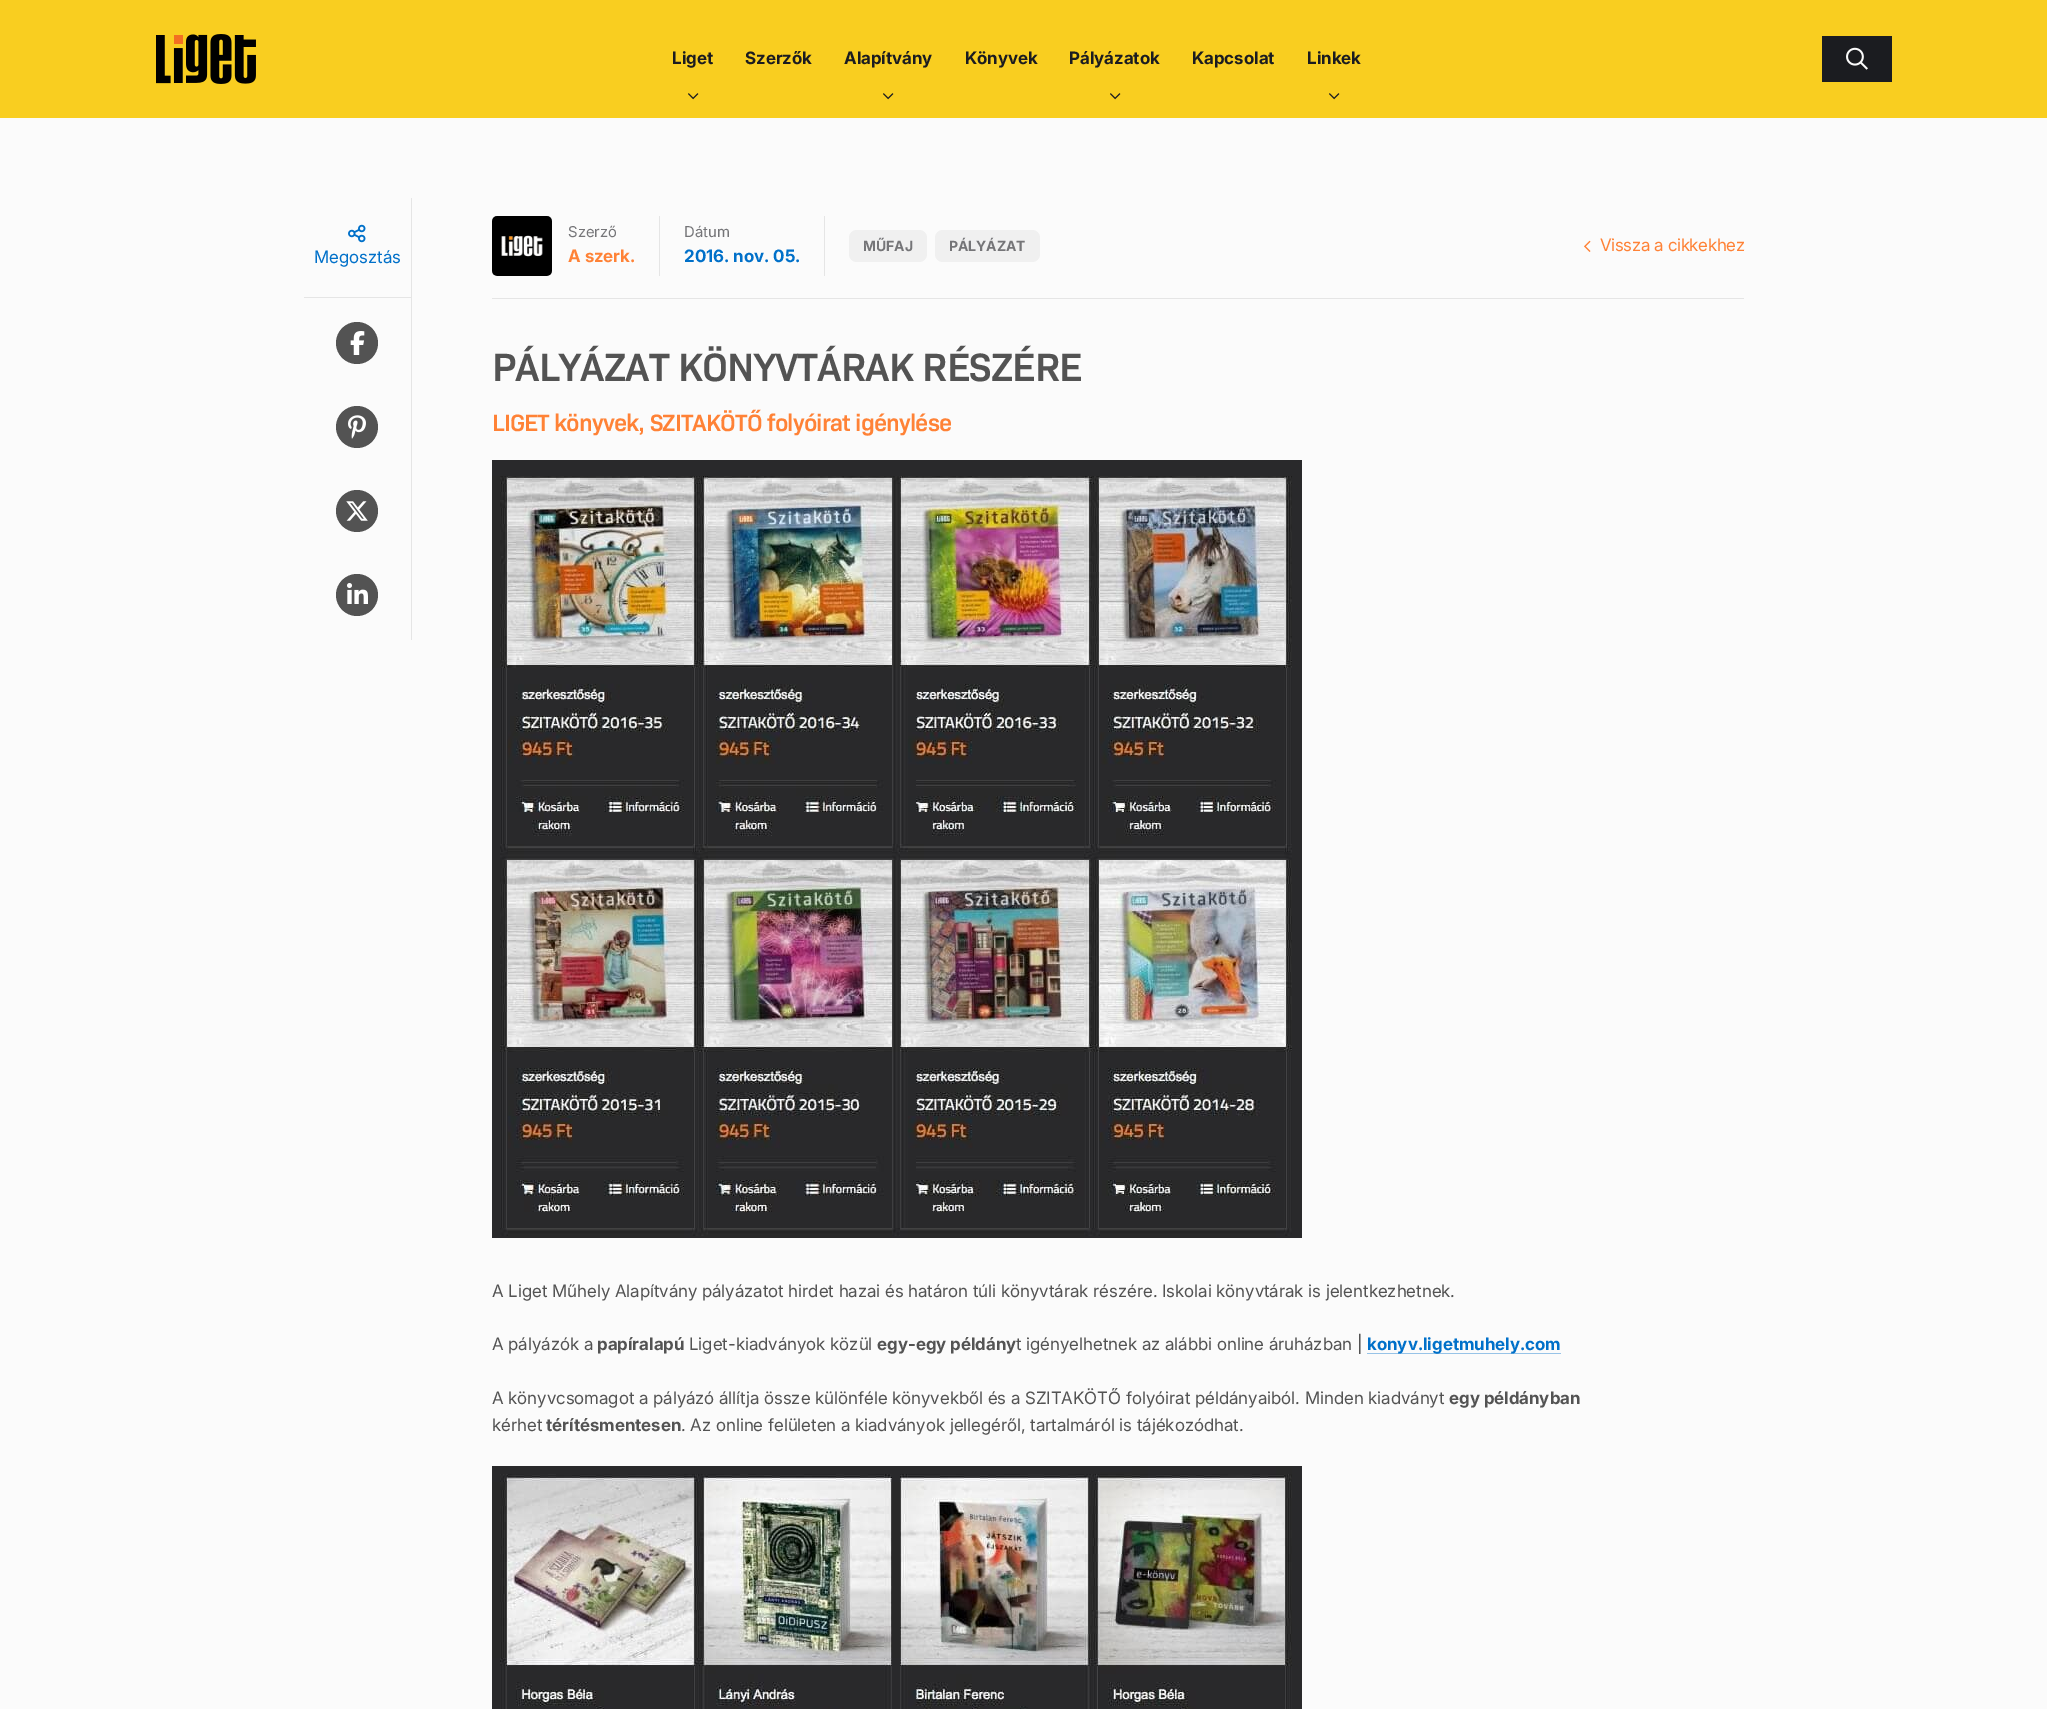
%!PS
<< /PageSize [2047 1709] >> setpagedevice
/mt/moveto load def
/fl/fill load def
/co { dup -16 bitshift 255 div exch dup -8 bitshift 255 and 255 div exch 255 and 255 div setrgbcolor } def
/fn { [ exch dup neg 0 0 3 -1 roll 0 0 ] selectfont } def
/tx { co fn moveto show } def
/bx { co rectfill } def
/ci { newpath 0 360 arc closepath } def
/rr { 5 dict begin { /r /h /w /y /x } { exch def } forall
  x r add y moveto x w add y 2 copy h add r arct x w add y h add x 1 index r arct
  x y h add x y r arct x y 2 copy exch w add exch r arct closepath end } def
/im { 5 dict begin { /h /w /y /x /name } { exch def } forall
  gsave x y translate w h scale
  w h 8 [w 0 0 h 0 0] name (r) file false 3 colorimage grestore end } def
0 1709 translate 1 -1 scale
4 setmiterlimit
0 0 2047 1709 16#FBFBFB bx
0 0 2047 118 16#F9CE20 bx
(media/1.raw) 156 34 100 50 im
(media/2.raw) 688 93 11 7 im
(media/2.raw) 883 93 11 7 im
(media/2.raw) 1110 93 11 7 im
(media/2.raw) 1329 93 11 7 im
1822 36 70 46 16#1B1C20 bx
(media/3.raw) 1846 47 22 23 im
411 198 1 442 16#E5E5E5 bx
304 297 107 1 16#E5E5E5 bx
(media/4.raw) 348 224 18 19 im
16#535353 co
357 343 21 ci fl
(media/5.raw) 350 331 15 24 im
357 427 21 ci fl
(media/6.raw) 348 415 18 24 im
357 511 21 ci fl
(media/7.raw) 346 501 22 20 im
357 595 21 ci fl
(media/8.raw) 347 583 21 21 im
492 298 1252 1 16#E5E5E5 bx
(media/9.raw) 492 216 60 60 im
659 216 1 60 16#E5E5E5 bx
824 216 1 60 16#E5E5E5 bx
16#F0F0F0 co
849 230 78 32 8 rr fl
935 230 105 32 8 rr fl
(media/10.raw) 1584 240 7 12 im
(media/11.raw) 492 460 810 778 im
1367 1353 194 1 16#97C3E7 bx
(media/12.raw) 492 1466 810 243 im
(Liget) 672 64 /Inter-Bold 17 16#1B1C20 tx
(Szerzők) 745 64 /Inter-Bold 17 16#1B1C20 tx
(Alapítvány) 844 64 /Inter-Bold 17 16#1B1C20 tx
(Könyvek) 965 64 /Inter-Bold 17 16#1B1C20 tx
(Pályázatok) 1069 64 /Inter-Bold 17 16#1B1C20 tx
(Kapcsolat) 1192 64 /Inter-Bold 17 16#1B1C20 tx
(Linkek) 1307 64 /Inter-Bold 17 16#1B1C20 tx
(Megosztás) 314 263 /Inter-Regular 17 16#0070C9 tx
(Szerző) 568 237 /Inter-Regular 15 16#757578 tx
(A szerk.) 568 262 /Inter-Bold 17 16#FF8236 tx
(Dátum) 684 237 /Inter-Regular 15 16#757578 tx
(2016. nov. 05.) 684 262 /Inter-Bold 17 16#0070C9 tx
(MŰFAJ) 863 251 /Inter-Bold 14 16#757578 tx
(PÁLYÁZAT) 949 251 /Inter-Bold 14 16#757578 tx
/Inter-Regular 17 fn
16#FF8236 co
1600 251 mt -.3 0 (Vissza a cikkekhez) ashow
/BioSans-SemiBold 40 fn
16#535353 co
492 381 mt -.8 0 (PÁLYÁZAT KÖNYVTÁRAK RÉSZÉRE) ashow
/BioSans-SemiBold 24 fn
16#FF8236 co
492 431 mt -.8 0 (LIGET könyvek, SZITAKÖTŐ folyóirat igénylése) ashow
(A Liget Műhely Alapítvány pályázatot hirdet hazai és határon túli könyvtárak részére. Iskolai könyvtárak is jelentkezhetnek.) 492 1297 /Inter-Regular 17 16#535353 tx
(A pályázók a) 492 1350 /Inter-Regular 17 16#535353 tx
(papíralapú) 597 1350 /Inter-Bold 17 16#535353 tx
(Liget-kiadványok közül) 689 1350 /Inter-Regular 17 16#535353 tx
(egy-egy példány) 877 1350 /Inter-Bold 17 16#535353 tx
(t igényelhetnek az alábbi online áruházban |) 1016 1350 /Inter-Regular 17 16#535353 tx
(konyv.ligetmuhely.com) 1367 1350 /Inter-Bold 17 16#0070C9 tx
(A könyvcsomagot a pályázó állítja össze különféle könyvekből és a SZITAKÖTŐ folyóirat példányaiból. Minden kiadványt) 492 1404 /Inter-Regular 17 16#535353 tx
(egy példányban) 1449 1404 /Inter-Bold 17 16#535353 tx
(kérhet) 492 1431 /Inter-Regular 17 16#535353 tx
(térítésmentesen) 546 1431 /Inter-Bold 17 16#535353 tx
(. Az online felületen a kiadványok jellegéről, tartalmáról is tájékozódhat.) 681 1431 /Inter-Regular 17 16#535353 tx
showpage
